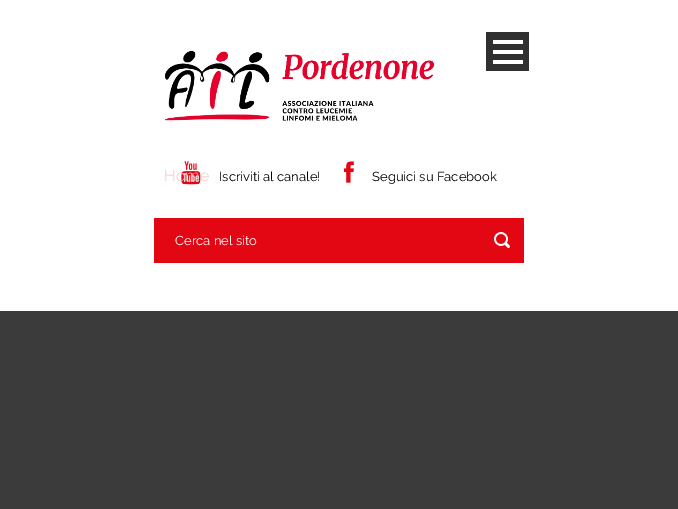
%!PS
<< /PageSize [678 509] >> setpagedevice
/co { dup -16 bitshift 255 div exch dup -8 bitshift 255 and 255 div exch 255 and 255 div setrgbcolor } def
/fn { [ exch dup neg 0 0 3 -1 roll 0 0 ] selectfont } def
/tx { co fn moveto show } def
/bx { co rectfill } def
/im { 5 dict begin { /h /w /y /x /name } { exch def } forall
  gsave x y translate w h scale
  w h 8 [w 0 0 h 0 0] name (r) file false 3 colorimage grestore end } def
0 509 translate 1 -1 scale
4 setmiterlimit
0 0 678 509 16#FFFFFF bx
(media/1.raw) 165 50 270 71 im
486 32 43 39 16#303030 bx
493 60 30 4 16#FFFFFF bx
493 50 30 4 16#FFFFFF bx
493 40 30 4 16#FFFFFF bx
(media/2.raw) 181 161 20 24 im
(media/3.raw) 344 161 10 22 im
154 218 370 45 16#E30613 bx
(media/4.raw) 494 232 16 16 im
0 311 678 198 16#3B3B3C bx
(Home) 164 181 /Raleway-Light 16 16#F8BFC3 tx
(Iscriviti al canale!) 219 181 /Raleway-Regular 13 16#000000 tx
(Seguici su Facebook) 372 181 /Raleway-Regular 13 16#000000 tx
(Cerca nel sito) 175 245 /Raleway-Regular 13 16#FFFFFF tx
showpage
